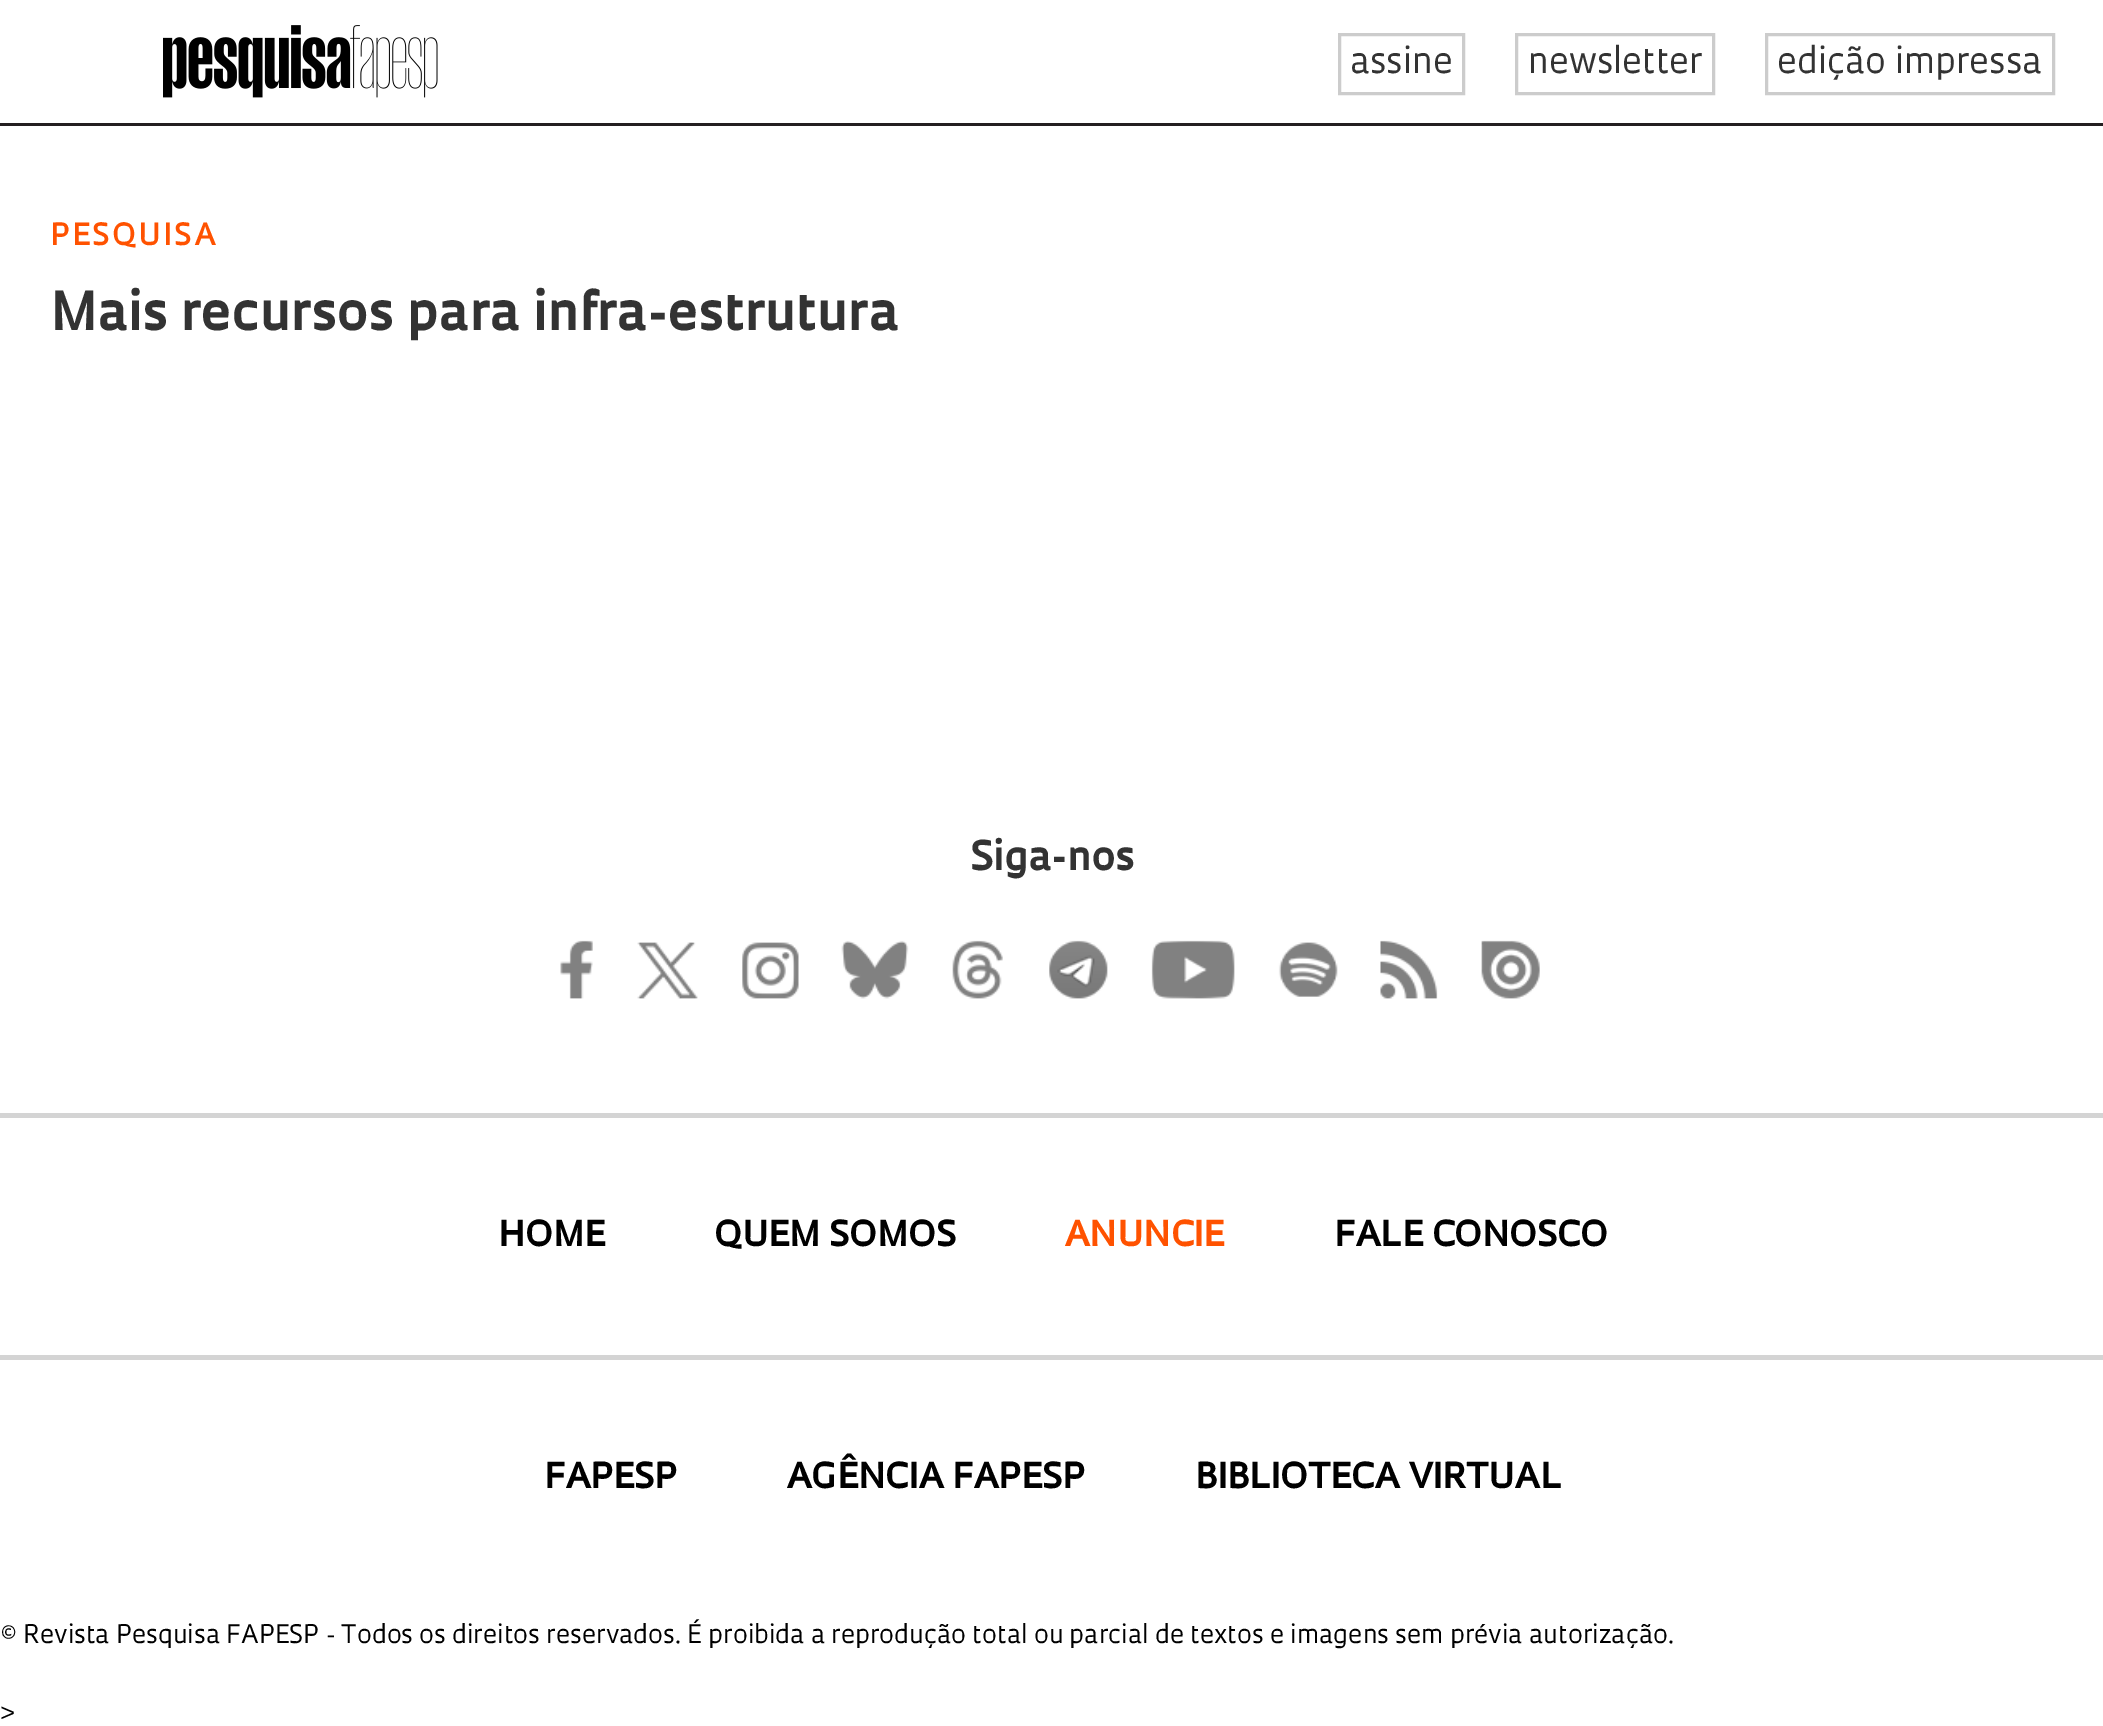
%!PS
<< /PageSize [2103 1726] >> setpagedevice
/mt/moveto load def
/lw/setlinewidth load def
/co { dup -16 bitshift 255 div exch dup -8 bitshift 255 and 255 div exch 255 and 255 div setrgbcolor } def
/fn { [ exch dup neg 0 0 3 -1 roll 0 0 ] selectfont } def
/tx { co fn moveto show } def
/bx { co rectfill } def
/im { 5 dict begin { /h /w /y /x /name } { exch def } forall
  gsave x y translate w h scale
  w h 8 [w 0 0 h 0 0] name (r) file false 3 colorimage grestore end } def
0 1726 translate 1 -1 scale
4 setmiterlimit
0 0 2103 1726 16#FFFFFF bx
0 123 2103 3 16#231F20 bx
(media/1.raw) 163 25 275 73 im
16#CCCCCC co
3 lw
1339.5 34.5 124 59 rectstroke
1516.5 34.5 197 59 rectstroke
1766.5 34.5 287 59 rectstroke
0 1113 2103 5 16#D4D4D4 bx
(media/2.raw) 560 940 980 59 im
0 1355 2103 5 16#D4D4D4 bx
(assine) 1350 73 /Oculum-Regular 35 16#333333 tx
(newsletter) 1528 73 /Oculum-Regular 35 16#333333 tx
(edição impressa) 1777 73 /Oculum-Regular 35 16#333333 tx
/Oculum-SemiBold 30 fn
16#FF5200 co
50 245 mt 2.5 0 (PESQUISA) ashow
(Mais recursos para infra-estrutura) 50 330 /Oculum-Bold 52.5 16#333333 tx
(Siga-nos) 970 870 /Oculum-Bold 40 16#333333 tx
(HOME) 498 1246 /Oculum-Bold 35 16#000000 tx
(QUEM SOMOS) 714 1246 /Oculum-Bold 35 16#000000 tx
(ANUNCIE) 1064 1246 /Oculum-Bold 35 16#FF5200 tx
(FALE CONOSCO) 1334 1246 /Oculum-Bold 35 16#000000 tx
(FAPESP) 544 1488 /Oculum-Bold 35 16#000000 tx
(AGÊNCIA FAPESP) 786 1488 /Oculum-Bold 35 16#000000 tx
(BIBLIOTECA VIRTUAL) 1195 1488 /Oculum-Bold 35 16#000000 tx
(© Revista Pesquisa FAPESP - Todos os direitos reservados. É proibida a reprodução total ou parcial de textos e imagens sem prévia autorização.) 0 1643 /Oculum-Regular 25 16#000000 tx
(>) 0 1721 /Oculum-Regular 25 16#000000 tx
showpage
